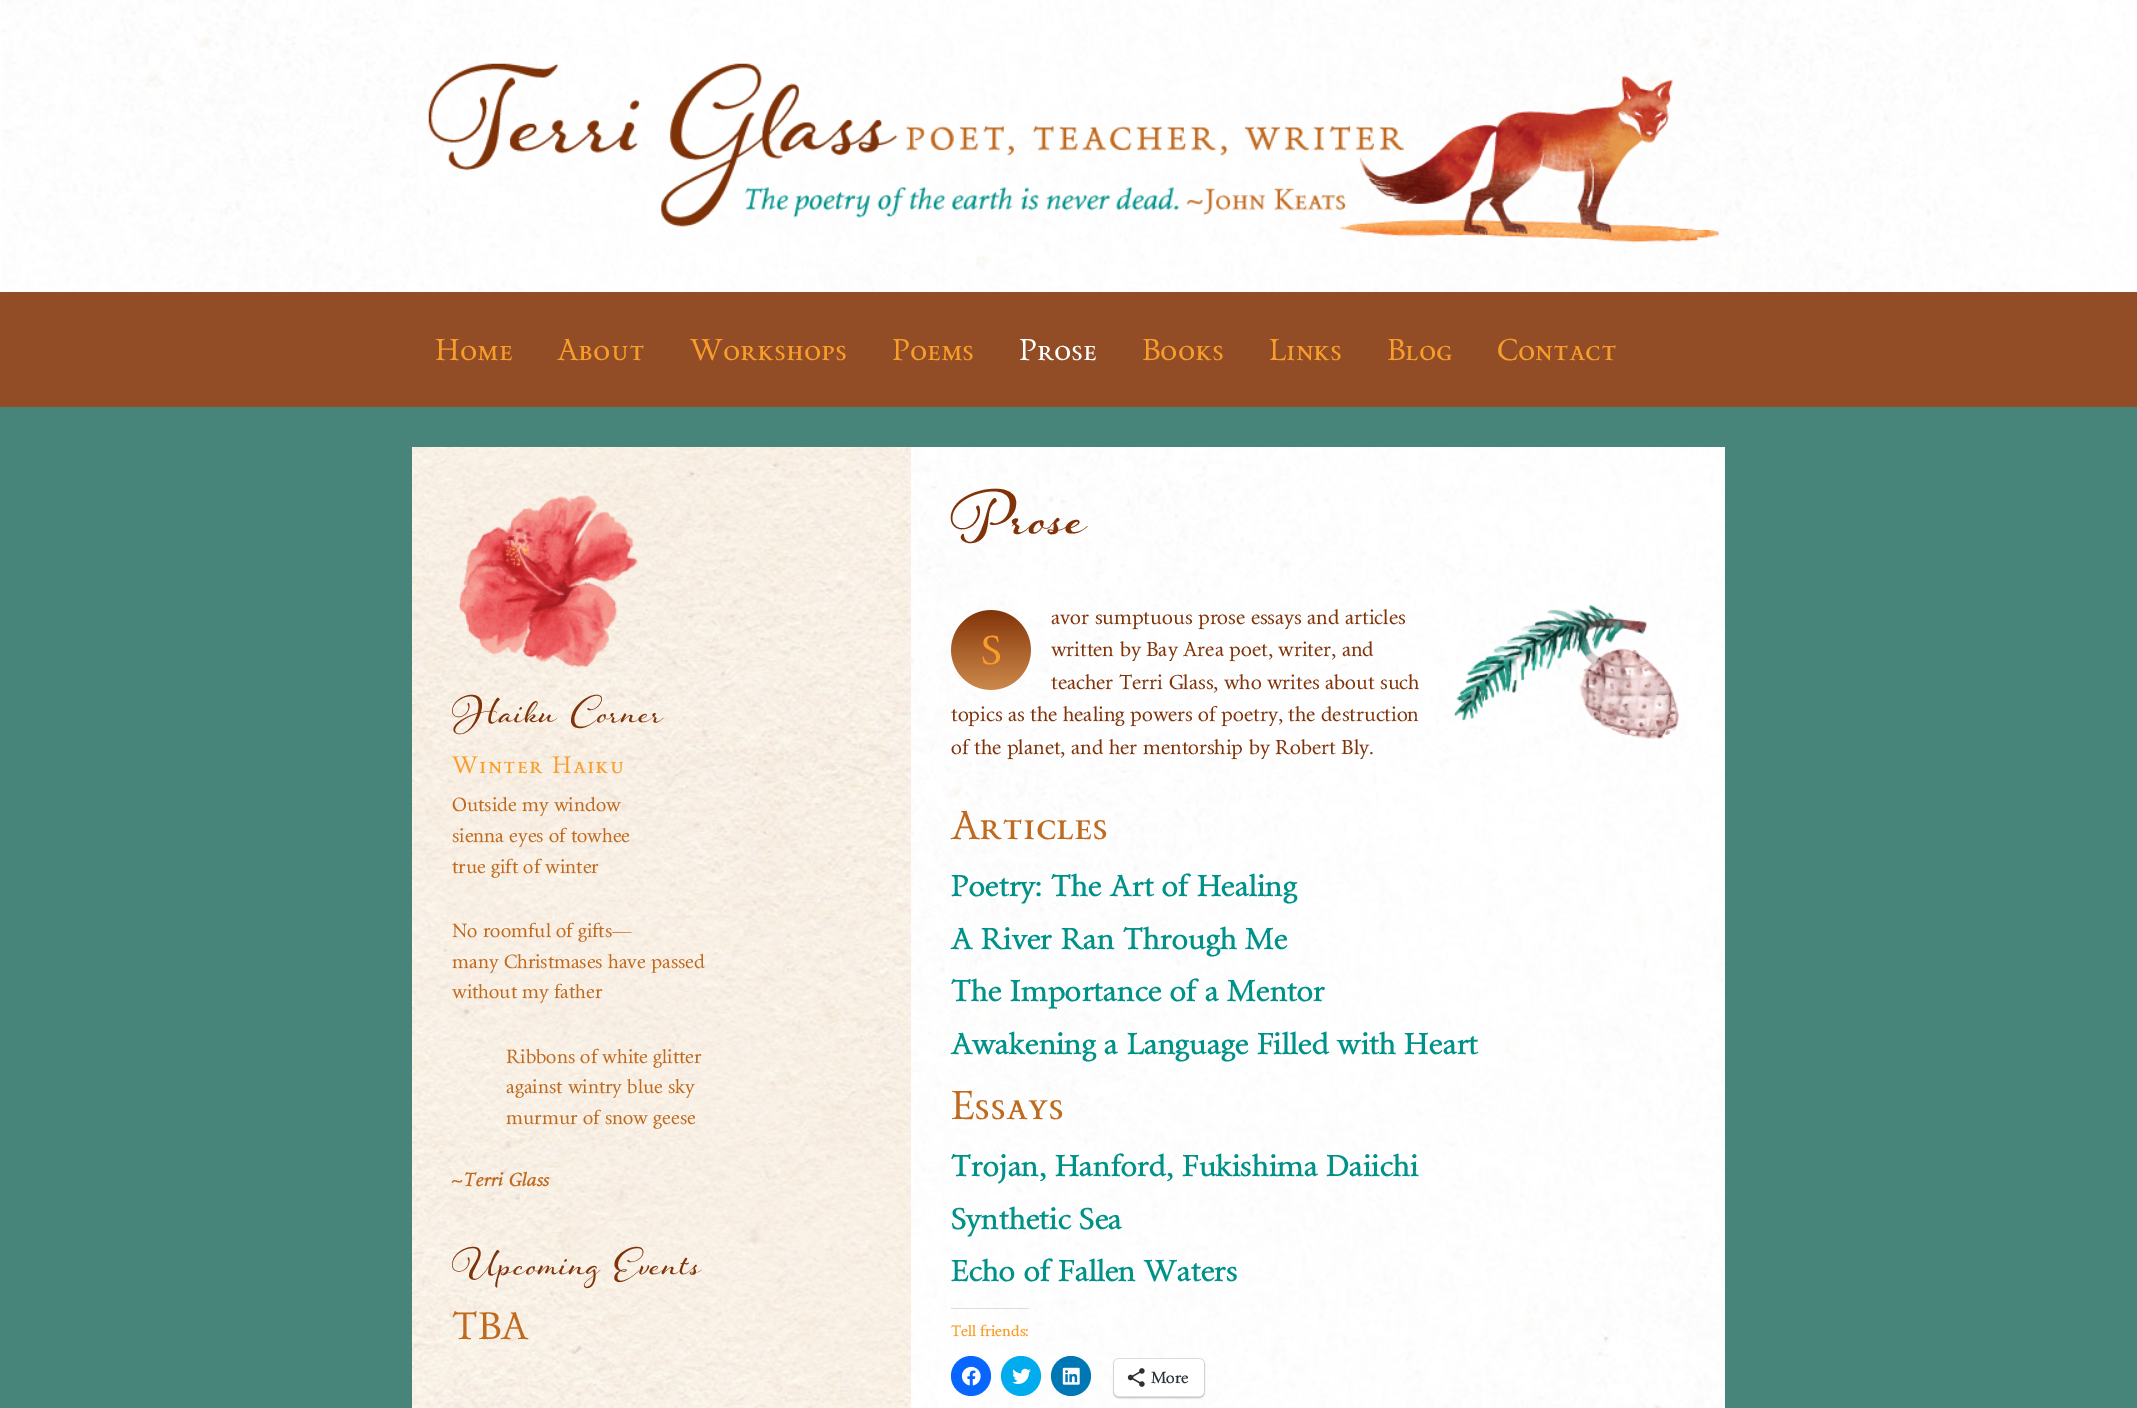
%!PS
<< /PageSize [2137 1408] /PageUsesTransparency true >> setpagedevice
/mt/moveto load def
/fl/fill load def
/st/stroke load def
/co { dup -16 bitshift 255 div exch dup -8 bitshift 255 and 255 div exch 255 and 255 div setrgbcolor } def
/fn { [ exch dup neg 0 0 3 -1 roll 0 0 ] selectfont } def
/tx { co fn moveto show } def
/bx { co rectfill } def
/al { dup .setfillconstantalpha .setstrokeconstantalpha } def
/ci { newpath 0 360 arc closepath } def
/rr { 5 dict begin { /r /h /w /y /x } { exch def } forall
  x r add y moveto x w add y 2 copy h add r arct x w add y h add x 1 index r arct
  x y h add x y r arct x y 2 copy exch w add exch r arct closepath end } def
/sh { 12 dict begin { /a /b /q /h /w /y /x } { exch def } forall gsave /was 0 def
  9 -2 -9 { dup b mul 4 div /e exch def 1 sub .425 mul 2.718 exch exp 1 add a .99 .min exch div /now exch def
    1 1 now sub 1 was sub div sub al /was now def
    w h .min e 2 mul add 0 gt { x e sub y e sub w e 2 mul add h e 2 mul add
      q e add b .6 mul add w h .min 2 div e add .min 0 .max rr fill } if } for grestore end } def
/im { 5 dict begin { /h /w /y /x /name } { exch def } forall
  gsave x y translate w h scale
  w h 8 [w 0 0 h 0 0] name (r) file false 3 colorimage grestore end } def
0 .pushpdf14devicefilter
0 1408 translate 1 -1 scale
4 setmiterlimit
0 0 2137 1408 16#FFFFFF bx
(media/1.raw) 1 0 2133 292 im
(media/2.raw) 428 63 1291 180 im
0 292 2137 115 16#924D26 bx
0 407 2137 1001 16#47857A bx
(media/3.raw) 412 447 499 961 im
(media/4.raw) 458 495 180 173 im
(media/5.raw) 911 447 814 961 im
(media/6.raw) 1453 604 226 135 im
951 1308 78 1 16#DCDCDE bx
16#0866FF co
971 1376 20 ci fl
(media/7.raw) 961 1366 20 20 im
16#00ACEE co
1021 1376 20 ci fl
(media/8.raw) 1012 1368 19 16 im
16#0077B5 co
1071 1376 20 ci fl
(media/9.raw) 1062 1367 18 18 im
0.12 al
16#000000 co
1113.5 1358.5 91 39 5.5 rr st
1 al
1114 1360 90 38 5 1 .12 sh
16#FFFFFF co
1114 1359 90 37 5 rr fl
(media/10.raw) 1127 1368 18 19 im
(Home) 435 360 /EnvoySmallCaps-Regular 30 16#F99D2A tx
(About) 557 360 /EnvoySmallCaps-Regular 30 16#F99D2A tx
(Workshops) 690 360 /EnvoySmallCaps-Regular 30 16#F99D2A tx
(Poems) 892 360 /EnvoySmallCaps-Regular 30 16#F99D2A tx
(Prose) 1019 360 /EnvoySmallCaps-Regular 30 16#FFFFFF tx
(Books) 1142 360 /EnvoySmallCaps-Regular 30 16#F99D2A tx
(Links) 1269 360 /EnvoySmallCaps-Regular 30 16#F99D2A tx
(Blog) 1387 360 /EnvoySmallCaps-Regular 30 16#F99D2A tx
(Contact) 1497 360 /EnvoySmallCaps-Regular 30 16#F99D2A tx
/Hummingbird-Regular 52.25 fn
16#803208 co
452 722 mt 5 0 32 (Haiku Corner) widthshow
/EnvoySmallCaps-Regular 23.75 fn
16#F99D2A co
452 773 mt 1.25 0 (Winter Haiku) ashow
(Outside my window) 452 811 /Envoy-Regular 19 16#BF6A1E tx
(sienna eyes of towhee) 452 842 /Envoy-Regular 19 16#BF6A1E tx
(true gift of winter) 452 873 /Envoy-Regular 19 16#BF6A1E tx
(No roomful of gifts—) 452 937 /Envoy-Regular 19 16#BF6A1E tx
(many Christmases have passed) 452 968 /Envoy-Regular 19 16#BF6A1E tx
(without my father) 452 998 /Envoy-Regular 19 16#BF6A1E tx
(Ribbons of white glitter) 506 1063 /Envoy-Regular 19 16#BF6A1E tx
(against wintry blue sky) 506 1093 /Envoy-Regular 19 16#BF6A1E tx
(murmur of snow geese) 506 1124 /Envoy-Regular 19 16#BF6A1E tx
(~Terri Glass) 452 1186 /Envoy-BoldItalic 19 16#BF6A1E tx
/Hummingbird-Regular 52.25 fn
16#803208 co
452 1274 mt 5 0 32 (Upcoming Events) widthshow
(TBA) 452 1339 /EnvoySmallCaps-Regular 38 16#BF6A1E tx
(Prose) 951 533 /Hummingbird-Bold 85 16#803208 tx
(avor sumptuous prose essays and articles) 1051 624 /Envoy-Regular 20 16#803208 tx
(S) 981 664 /EnvoySmallCaps-Regular 40 16#F99D2A tx
(written by Bay Area poet, writer, and) 1051 656 /Envoy-Regular 20 16#803208 tx
(teacher Terri Glass, who writes about such) 1051 689 /Envoy-Regular 20 16#803208 tx
(topics as the healing powers of poetry, the destruction) 951 721 /Envoy-Regular 20 16#803208 tx
(of the planet, and her mentorship by Robert Bly.) 951 754 /Envoy-Regular 20 16#803208 tx
(Articles) 951 839 /EnvoySmallCaps-Regular 40 16#BF6A1E tx
(Poetry: The Art of Healing) 951 896 /Envoy-Bold 30 16#009189 tx
(A River Ran Through Me) 951 949 /Envoy-Bold 30 16#009189 tx
(The Importance of a Mentor) 951 1001 /Envoy-Bold 30 16#009189 tx
(Awakening a Language Filled with Heart) 951 1054 /Envoy-Bold 30 16#009189 tx
(Essays) 951 1119 /EnvoySmallCaps-Regular 40 16#BF6A1E tx
(Trojan, Hanford, Fukishima Daiichi) 951 1176 /Envoy-Bold 30 16#009189 tx
(Synthetic Sea) 951 1229 /Envoy-Bold 30 16#009189 tx
(Echo of Fallen Waters) 951 1281 /Envoy-Bold 30 16#009189 tx
(Tell friends:) 951 1336 /Envoy-Bold 15 16#F99D2A tx
(More) 1151 1383 /Envoy-Bold 16 16#2C3338 tx
.poppdf14devicefilter showpage
